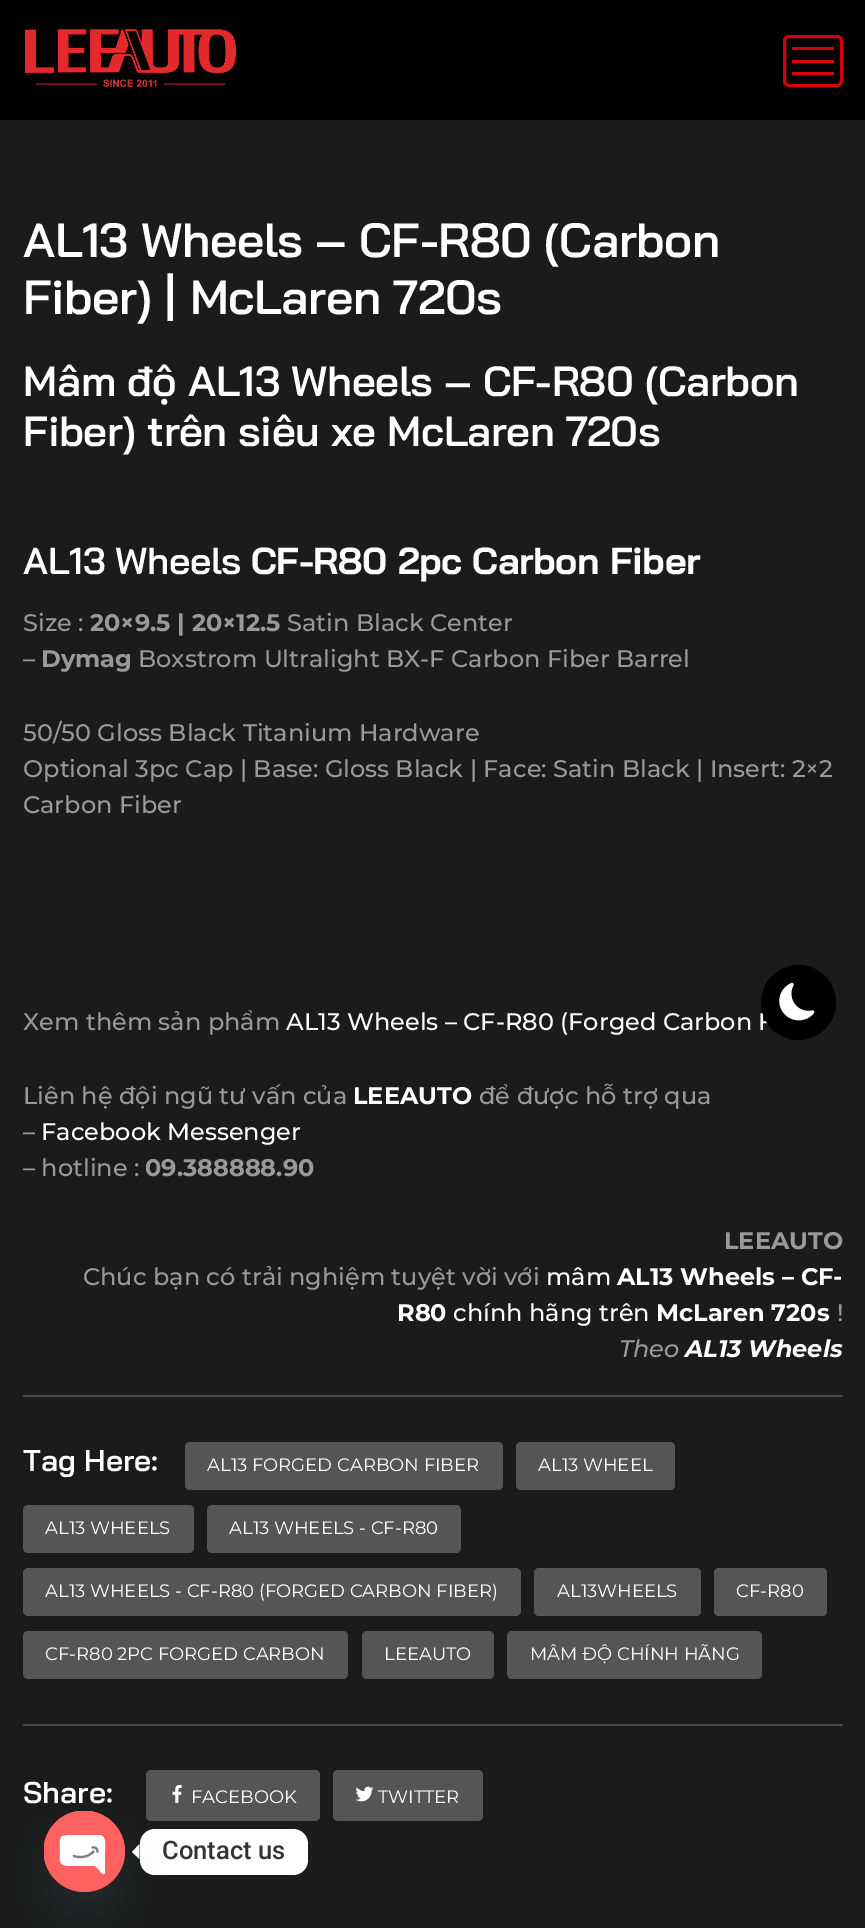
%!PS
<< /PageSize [865 1928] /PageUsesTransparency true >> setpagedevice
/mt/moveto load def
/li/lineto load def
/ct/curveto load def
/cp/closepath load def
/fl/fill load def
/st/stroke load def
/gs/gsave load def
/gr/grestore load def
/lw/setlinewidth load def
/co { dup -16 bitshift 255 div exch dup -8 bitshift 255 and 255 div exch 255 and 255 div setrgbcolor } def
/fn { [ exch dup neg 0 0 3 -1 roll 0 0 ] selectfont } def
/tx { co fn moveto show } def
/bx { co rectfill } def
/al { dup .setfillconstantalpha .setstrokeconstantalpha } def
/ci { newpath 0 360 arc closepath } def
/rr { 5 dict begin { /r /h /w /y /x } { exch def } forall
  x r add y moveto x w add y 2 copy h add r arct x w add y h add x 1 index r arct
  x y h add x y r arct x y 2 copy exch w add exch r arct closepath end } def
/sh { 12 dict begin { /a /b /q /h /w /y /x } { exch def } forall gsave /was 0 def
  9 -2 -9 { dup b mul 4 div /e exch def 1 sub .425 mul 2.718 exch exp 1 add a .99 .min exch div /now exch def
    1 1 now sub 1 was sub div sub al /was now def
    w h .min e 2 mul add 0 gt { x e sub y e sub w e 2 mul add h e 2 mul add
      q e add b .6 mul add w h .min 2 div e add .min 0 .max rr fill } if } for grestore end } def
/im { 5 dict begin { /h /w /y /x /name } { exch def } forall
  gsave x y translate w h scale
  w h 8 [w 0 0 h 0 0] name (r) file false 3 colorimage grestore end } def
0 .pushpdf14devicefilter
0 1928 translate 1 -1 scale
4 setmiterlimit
0 0 865 1928 16#1B1B1B bx
0 0 865 120 16#000000 bx
(media/1.raw) 24 29 213 58 im
16#D70006 co
3 lw
784.5 36.5 57 49 4.5 rr st
792 47 42 3 16#D70006 bx
792 60 42 3 16#D70006 bx
792 72 42 3 16#D70006 bx
23 1395 820 2 16#494949 bx
16#555555 co
185 1442 318 48 5 rr fl
516 1442 159 48 5 rr fl
23 1505 171 48 5 rr fl
207 1505 254 48 5 rr fl
23 1568 498 48 5 rr fl
534 1568 167 48 5 rr fl
714 1568 113 48 5 rr fl
23 1631 325 48 5 rr fl
362 1631 132 48 5 rr fl
507 1631 255 48 5 rr fl
23 1724 820 2 16#494949 bx
16#555555 co
146 1770 174 51 5 rr fl
(media/2.raw) 172 1785 10 18 im
333 1770 150 51 5 rr fl
(media/3.raw) 355 1786 19 16 im
16#FFFFFF co
140 1829 168 46 15 rr fl
139.5 1844 mt 139.5 1859 li 132 1852 li cp fl
16#49687E co
44 1835 81 81 40.5 18 .16 sh
16#FF6060 co
84.5 1851.5 40.5 ci fl
gs
44 1811 81 81 rectclip
84 1851 40.5 ci fl
gr
16#FFFFFF co
99 1835 mt 71 1835 li 58 1835 60 1838 60 1850 ct 60 1862 58 1866 71 1866 ct 95 1866 li 100 1871 li 100 1872 104 1876 105 1873 ct 105 1851 li 105 1847 107 1835 99 1835 ct cp fl
16#808080 co
2.2 lw
1 setlinecap
1 setlinejoin
74 1856 mt 77.5 1857.5 86.5 1859 93.5 1851.5 ct 97.5 1851.5 mt 97.5 1850 96.5 1846.5 92.5 1847.5 ct st
/BaiJamjuree-SemiBold 48 fn
16#FFFFFF co
23 257 mt -.5 0 (AL13 Wheels – CF-R80 \(Carbon) ashow
23 314 mt -.5 0 (Fiber\) | McLaren 720s) ashow
/BaiJamjuree-SemiBold 42 fn
23 396 mt -.4 0 (Mâm độ AL13 Wheels – CF-R80 \(Carbon) ashow
23 446 mt -.4 0 (Fiber\) trên siêu xe McLaren 720s) ashow
/BaiJamjuree-SemiBold 37.5 fn
23 574 mt -.4 0 (AL13 Wheels) ashow
/BaiJamjuree-Bold 37.5 fn
251 574 mt -.4 0 (CF-R80 2pc Carbon Fiber) ashow
(Size :) 23 631 /Montserrat-Medium 24 16#999999 tx
(20×9.5 | 20×12.5) 90 631 /Montserrat-Bold 24 16#999999 tx
(Satin Black Center) 287 631 /Montserrat-Medium 24 16#999999 tx
(–) 23 667 /Montserrat-Medium 24 16#999999 tx
(Dymag) 41 667 /Montserrat-Bold 24 16#999999 tx
(Boxstrom Ultralight BX-F Carbon Fiber Barrel) 138 667 /Montserrat-Medium 24 16#999999 tx
(50/50 Gloss Black Titanium Hardware) 23 741 /Montserrat-Medium 24 16#999999 tx
(Optional 3pc Cap | Base: Gloss Black | Face: Satin Black | Insert: 2×2) 23 777 /Montserrat-Medium 24 16#999999 tx
(Carbon Fiber) 23 813 /Montserrat-Medium 24 16#999999 tx
(Xem thêm sản phẩm) 23 1030 /Montserrat-Medium 24 16#999999 tx
(AL13 Wheels – CF-R80 \(Forged Carbon F) 286 1030 /Montserrat-Medium 24 16#FFFFFF tx
(Liên hệ đội ngũ tư vấn của) 23 1104 /Montserrat-Medium 24 16#999999 tx
(LEEAUTO) 353 1104 /Montserrat-Bold 24 16#FFFFFF tx
(để được hỗ trợ qua) 479 1104 /Montserrat-Medium 24 16#999999 tx
(–) 23 1140 /Montserrat-Medium 24 16#999999 tx
(Facebook Messenger) 41 1140 /Montserrat-Medium 24 16#FFFFFF tx
(– hotline :) 23 1176 /Montserrat-Medium 24 16#999999 tx
(09.388888.90) 145 1176 /Montserrat-Bold 24 16#999999 tx
(LEEAUTO) 724 1249 /Montserrat-Bold 24 16#999999 tx
(Chúc bạn có trải nghiệm tuyệt vời với) 83 1285 /Montserrat-Medium 24 16#999999 tx
(mâm) 546 1285 /Montserrat-Medium 24 16#FFFFFF tx
(AL13 Wheels – CF-) 617 1285 /Montserrat-Bold 24 16#FFFFFF tx
(R80) 397 1321 /Montserrat-Bold 24 16#FFFFFF tx
(chính hãng trên) 453 1321 /Montserrat-Medium 24 16#FFFFFF tx
(McLaren 720s) 656 1321 /Montserrat-Bold 24 16#FFFFFF tx
(!) 837 1321 /Montserrat-Medium 24 16#999999 tx
(Theo) 619 1357 /Montserrat-MediumItalic 24 16#999999 tx
(AL13 Wheels) 685 1357 /Montserrat-BoldItalic 24 16#FFFFFF tx
(Tag Here:) 23 1471 /BaiJamjuree-SemiBold 30 16#FFFFFF tx
(AL13 FORGED CARBON FIBER) 207 1471 /Montserrat-Regular 18 16#FFFFFF tx
(AL13 WHEEL) 538 1471 /Montserrat-Regular 18 16#FFFFFF tx
(AL13 WHEELS) 45 1534 /Montserrat-Regular 18 16#FFFFFF tx
(AL13 WHEELS - CF-R80) 229 1534 /Montserrat-Regular 18 16#FFFFFF tx
(AL13 WHEELS - CF-R80 \(FORGED CARBON FIBER\)) 45 1597 /Montserrat-Regular 18 16#FFFFFF tx
(AL13WHEELS) 557 1597 /Montserrat-Regular 18 16#FFFFFF tx
(CF-R80) 736 1597 /Montserrat-Regular 18 16#FFFFFF tx
(CF-R80 2PC FORGED CARBON) 45 1660 /Montserrat-Regular 18 16#FFFFFF tx
(LEEAUTO) 384 1660 /Montserrat-Regular 18 16#FFFFFF tx
(MÂM ĐỘ CHÍNH HÃNG) 530 1660 /Montserrat-Regular 18 16#FFFFFF tx
(Share:) 23 1803 /BaiJamjuree-SemiBold 30 16#FFFFFF tx
(FACEBOOK) 191 1803 /Montserrat-Regular 18 16#FFFFFF tx
(TWITTER) 378 1803 /Montserrat-Regular 18 16#FFFFFF tx
16#000000 co
798.5 1002.5 36.5 ci gs fl gr
2 lw
0 setlinecap
0 setlinejoin
st
(media/4.raw) 779 982 36 39 im
(Contact us) 162 1859 /Roboto-Medium 25.5 16#333333 tx
.poppdf14devicefilter showpage
